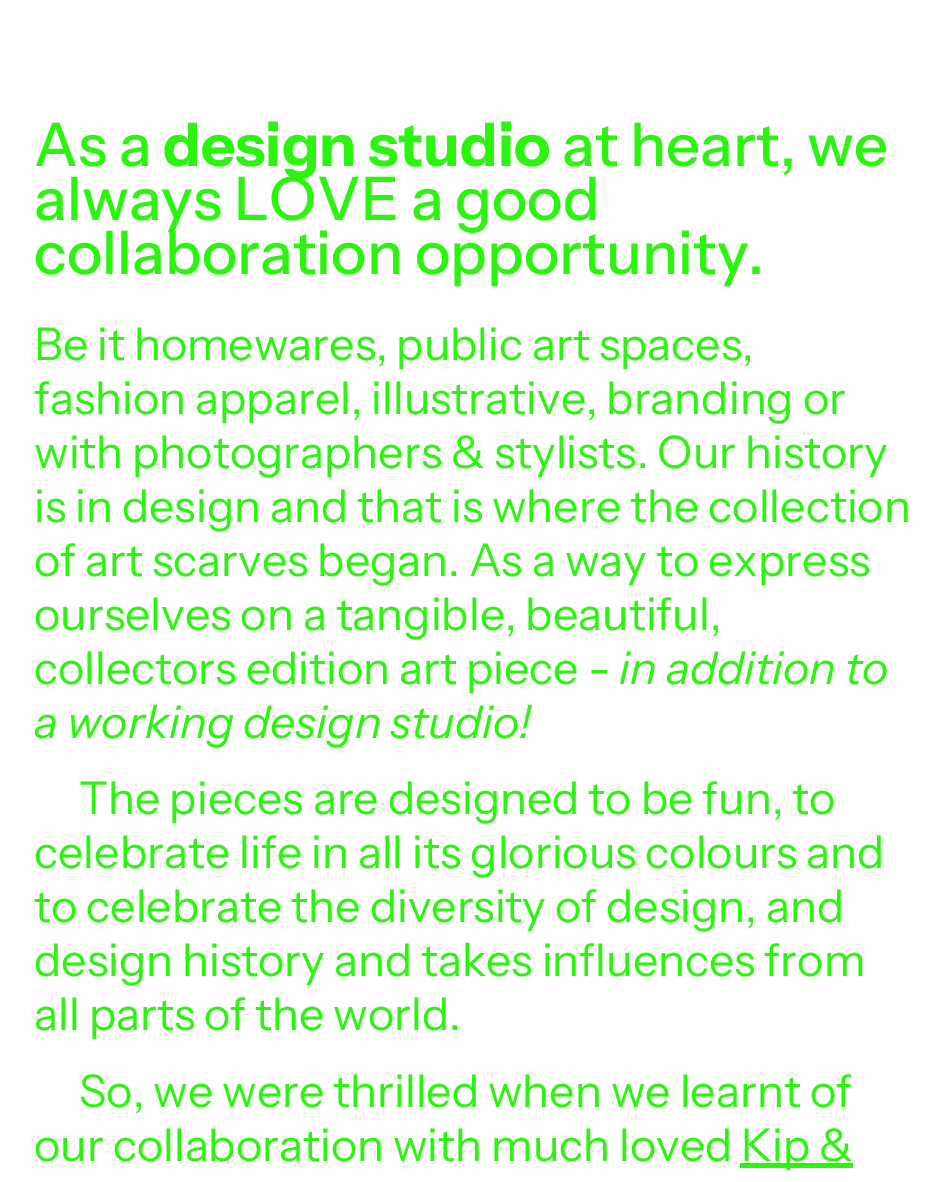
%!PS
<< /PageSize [946 1182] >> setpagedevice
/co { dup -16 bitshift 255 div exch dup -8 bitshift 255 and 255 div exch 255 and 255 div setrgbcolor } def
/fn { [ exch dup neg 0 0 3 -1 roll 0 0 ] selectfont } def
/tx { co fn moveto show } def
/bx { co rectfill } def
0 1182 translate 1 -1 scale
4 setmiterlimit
0 0 946 1182 16#FFFFFF bx
740 1163 113 5 16#2BF50F bx
(As a) 34 166 /InstrumentSans-Medium 60 16#2BF50F tx
(design studio) 163 166 /InstrumentSans-Bold 60 16#2BF50F tx
(at heart, we) 562 166 /InstrumentSans-Medium 60 16#2BF50F tx
(always LOVE a good) 34 220 /InstrumentSans-Medium 60 16#2BF50F tx
(collaboration opportunity.) 34 274 /InstrumentSans-Medium 60 16#2BF50F tx
(Be it homewares, public art spaces,) 34 360 /InstrumentSans-Regular 45 16#2BF50F tx
(fashion apparel, illustrative, branding or) 34 414 /InstrumentSans-Regular 45 16#2BF50F tx
(with photographers & stylists. Our history) 34 468 /InstrumentSans-Regular 45 16#2BF50F tx
(is in design and that is where the collection) 34 522 /InstrumentSans-Regular 45 16#2BF50F tx
(of art scarves began. As a way to express) 34 576 /InstrumentSans-Regular 45 16#2BF50F tx
(ourselves on a tangible, beautiful,) 34 630 /InstrumentSans-Regular 45 16#2BF50F tx
(collectors edition art piece -) 34 684 /InstrumentSans-Regular 45 16#2BF50F tx
(in addition to) 619 684 /InstrumentSans-Italic 45 16#2BF50F tx
(a working design studio!) 34 738 /InstrumentSans-Italic 45 16#2BF50F tx
(The pieces are designed to be fun, to) 79 814 /InstrumentSans-Regular 45 16#2BF50F tx
(celebrate life in all its glorious colours and) 34 868 /InstrumentSans-Regular 45 16#2BF50F tx
(to celebrate the diversity of design, and) 34 922 /InstrumentSans-Regular 45 16#2BF50F tx
(design history and takes influences from) 34 976 /InstrumentSans-Regular 45 16#2BF50F tx
(all parts of the world.) 34 1030 /InstrumentSans-Regular 45 16#2BF50F tx
(So, we were thrilled when we learnt of) 79 1107 /InstrumentSans-Regular 45 16#2BF50F tx
(our collaboration with much loved) 34 1161 /InstrumentSans-Regular 45 16#2BF50F tx
(Kip &) 741 1161 /InstrumentSans-Regular 45 16#2BF50F tx
showpage
